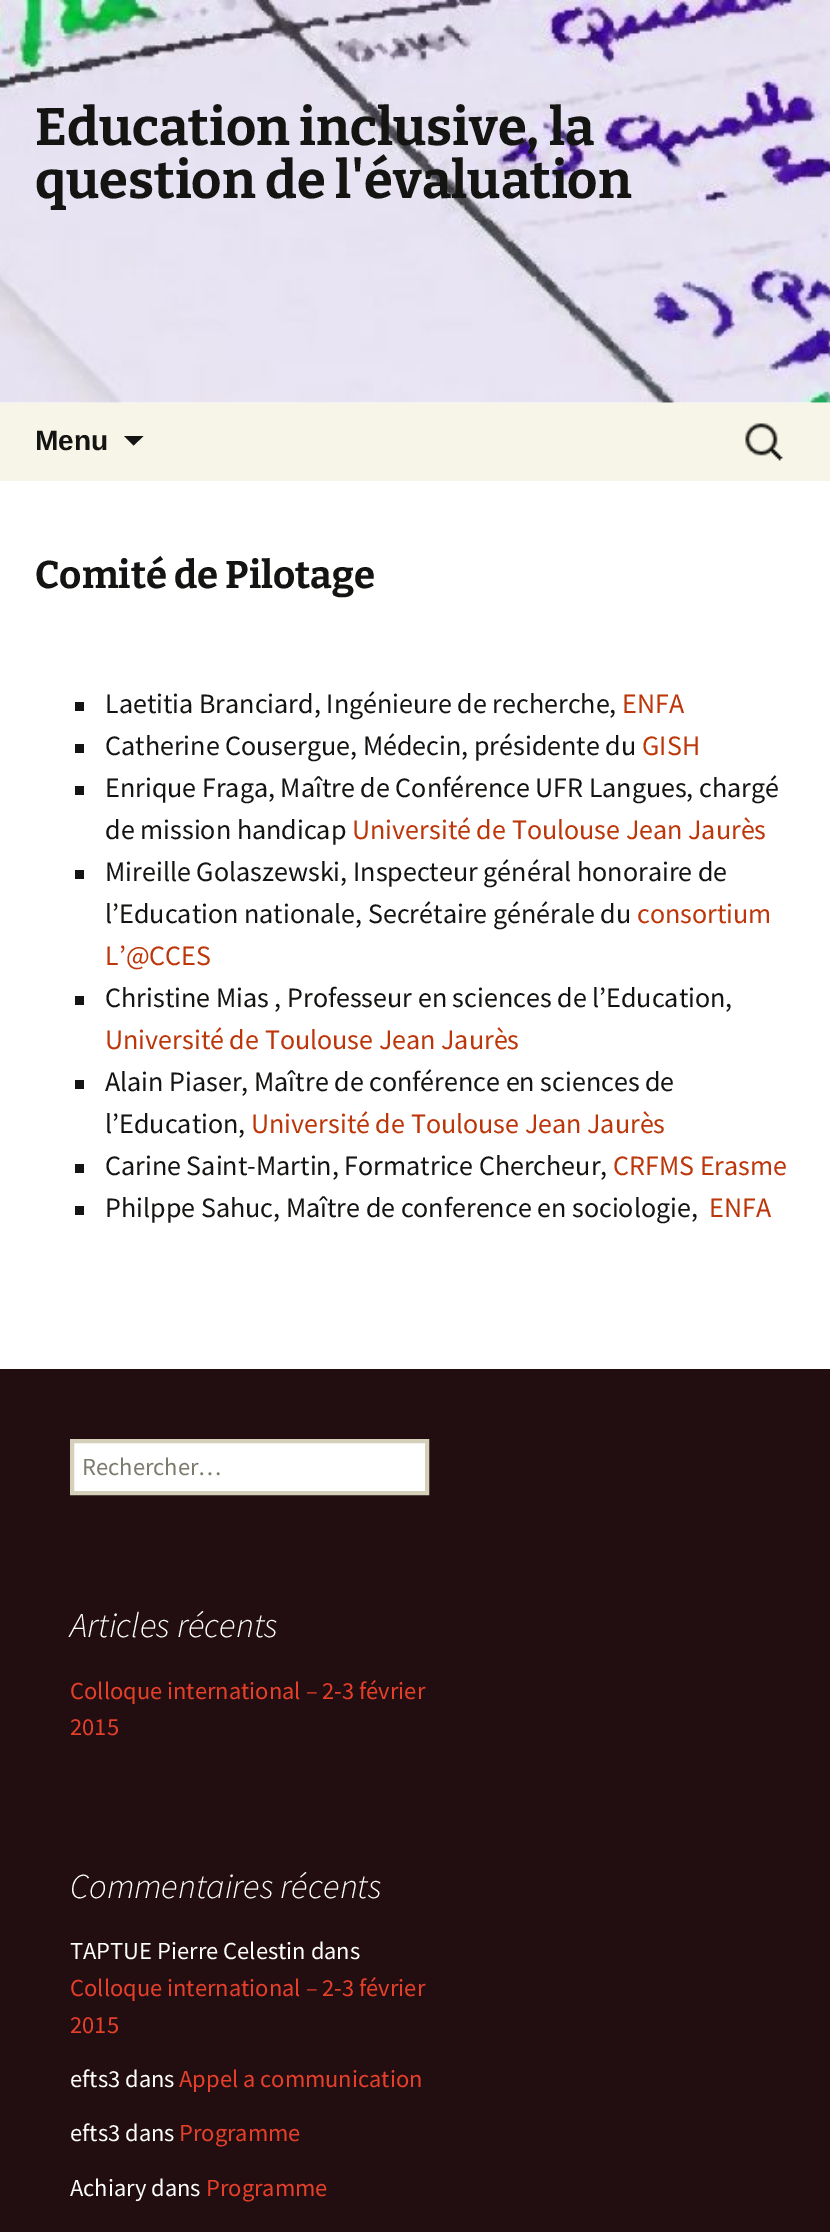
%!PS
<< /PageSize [830 2232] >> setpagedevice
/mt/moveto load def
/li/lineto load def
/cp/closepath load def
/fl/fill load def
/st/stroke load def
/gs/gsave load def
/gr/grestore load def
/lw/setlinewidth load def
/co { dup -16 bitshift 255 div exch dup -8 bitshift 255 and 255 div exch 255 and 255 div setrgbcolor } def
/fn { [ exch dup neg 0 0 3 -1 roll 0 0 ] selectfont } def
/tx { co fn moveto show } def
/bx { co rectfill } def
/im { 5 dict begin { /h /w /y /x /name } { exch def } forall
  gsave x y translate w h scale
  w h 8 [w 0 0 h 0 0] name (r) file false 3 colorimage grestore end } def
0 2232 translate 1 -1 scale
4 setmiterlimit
0 0 830 2232 16#FFFFFF bx
(media/1.raw) 0 0 830 403 im
0 403 830 78 16#F7F5E7 bx
16#141412 co
124 436 mt 133.5 445.5 li 143.5 436 li cp fl
(media/2.raw) 745 423 38 38 im
75 702 9 9 16#141412 bx
75 744 9 9 16#141412 bx
75 786 9 9 16#141412 bx
75 870 9 9 16#141412 bx
75 996 9 9 16#141412 bx
75 1080 9 9 16#141412 bx
75 1164 9 9 16#141412 bx
75 1206 9 9 16#141412 bx
0 1369 830 863 16#220E10 bx
16#FFFFFF co
72 1441 mt 427 1441 li 427 1493 li 72 1493 li cp gs fl gr
16#D4D0BA co
4 lw
st
(Education inclusive, la) 35 145 /Bitter-Bold 52.5 16#141412 tx
(question de l'évaluation) 35 198 /Bitter-Bold 52.5 16#141412 tx
(Menu) 35 450 /LiberationSans-Bold 28 16#141412 tx
(Comité de Pilotage) 35 588 /Bitter-Bold 38.5 16#141412 tx
(Laetitia Branciard, Ingénieure de recherche,) 105 713 /SourceSansPro-Regular 28 16#141412 tx
(ENFA) 622 713 /SourceSansPro-Regular 28 16#BC360A tx
(Catherine Cousergue, Médecin, présidente du) 105 755 /SourceSansPro-Regular 28 16#141412 tx
(GISH) 642 755 /SourceSansPro-Regular 28 16#BC360A tx
(Enrique Fraga, Maître de Conférence UFR Langues, chargé) 105 797 /SourceSansPro-Regular 28 16#141412 tx
(de mission handicap) 105 839 /SourceSansPro-Regular 28 16#141412 tx
(Université de Toulouse Jean Jaurès) 352 839 /SourceSansPro-Regular 28 16#BC360A tx
(Mireille Golaszewski, Inspecteur général honoraire de) 105 881 /SourceSansPro-Regular 28 16#141412 tx
(l’Education nationale, Secrétaire générale du) 105 923 /SourceSansPro-Regular 28 16#141412 tx
(consortium) 637 923 /SourceSansPro-Regular 28 16#BC360A tx
(L’@CCES) 105 965 /SourceSansPro-Regular 28 16#BC360A tx
(Christine Mias , Professeur en sciences de l’Education,) 105 1007 /SourceSansPro-Regular 28 16#141412 tx
(Université de Toulouse Jean Jaurès) 105 1049 /SourceSansPro-Regular 28 16#BC360A tx
(Alain Piaser, Maître de conférence en sciences de) 105 1091 /SourceSansPro-Regular 28 16#141412 tx
(l’Education,) 105 1133 /SourceSansPro-Regular 28 16#141412 tx
(Université de Toulouse Jean Jaurès) 251 1133 /SourceSansPro-Regular 28 16#BC360A tx
(Carine Saint-Martin, Formatrice Chercheur,) 105 1175 /SourceSansPro-Regular 28 16#141412 tx
(CRFMS Erasme) 613 1175 /SourceSansPro-Regular 28 16#BC360A tx
(Philppe Sahuc, Maître de conference en sociologie,) 105 1217 /SourceSansPro-Regular 28 16#141412 tx
(ENFA) 709 1217 /SourceSansPro-Regular 28 16#BC360A tx
(Rechercher…) 82 1475 /SourceSansPro-Regular 24.5 16#7D7B6D tx
(Articles récents) 70 1637 /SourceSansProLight-LightItalic 35 16#FFFFFF tx
(Colloque international – 2-3 février) 70 1699 /SourceSansPro-Regular 24.5 16#E6402A tx
(2015) 70 1735 /SourceSansPro-Regular 24.5 16#E6402A tx
(Commentaires récents) 70 1898 /SourceSansProLight-LightItalic 35 16#FFFFFF tx
(TAPTUE Pierre Celestin dans) 70 1959 /SourceSansPro-Regular 24.5 16#FFFFFF tx
(Colloque international – 2-3 février) 70 1996 /SourceSansPro-Regular 24.5 16#E6402A tx
(2015) 70 2033 /SourceSansPro-Regular 24.5 16#E6402A tx
(efts3 dans) 70 2087 /SourceSansPro-Regular 24.5 16#FFFFFF tx
(Appel a communication) 179 2087 /SourceSansPro-Regular 24.5 16#E6402A tx
(efts3 dans) 70 2141 /SourceSansPro-Regular 24.5 16#FFFFFF tx
(Programme) 179 2141 /SourceSansPro-Regular 24.5 16#E6402A tx
(Achiary dans) 70 2196 /SourceSansPro-Regular 24.5 16#FFFFFF tx
(Programme) 206 2196 /SourceSansPro-Regular 24.5 16#E6402A tx
showpage
